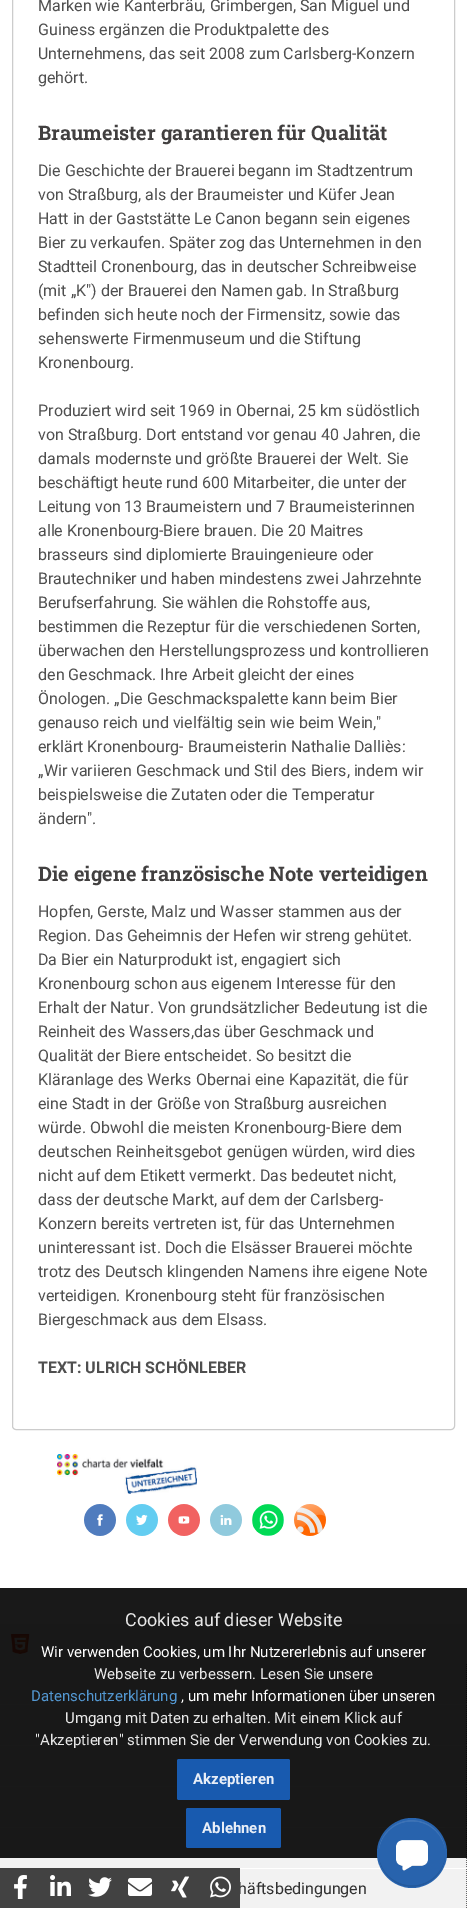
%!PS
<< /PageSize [467 1908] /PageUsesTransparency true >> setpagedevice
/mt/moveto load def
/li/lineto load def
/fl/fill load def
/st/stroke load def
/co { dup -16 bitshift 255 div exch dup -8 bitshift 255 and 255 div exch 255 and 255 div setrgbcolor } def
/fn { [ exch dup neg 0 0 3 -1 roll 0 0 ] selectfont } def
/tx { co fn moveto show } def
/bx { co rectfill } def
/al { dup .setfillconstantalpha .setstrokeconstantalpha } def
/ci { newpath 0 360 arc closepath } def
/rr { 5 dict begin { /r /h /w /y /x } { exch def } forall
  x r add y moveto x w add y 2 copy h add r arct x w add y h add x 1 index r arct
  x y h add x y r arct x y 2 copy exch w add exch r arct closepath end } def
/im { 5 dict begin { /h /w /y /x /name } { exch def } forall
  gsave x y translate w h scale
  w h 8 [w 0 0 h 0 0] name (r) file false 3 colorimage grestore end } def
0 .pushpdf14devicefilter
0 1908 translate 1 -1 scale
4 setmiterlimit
0 0 467 1908 16#FFFFFF bx
16#CCCCCC co
12.5 -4.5 442 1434 3.5 rr st
(media/1.raw) 57 1454 140 40 im
(media/2.raw) 84 1504 32 32 im
(media/3.raw) 126 1504 32 32 im
(media/4.raw) 168 1504 32 32 im
(media/5.raw) 210 1504 32 32 im
(media/6.raw) 252 1504 32 32 im
(media/7.raw) 294 1504 32 32 im
0 1624 467 284 16#F2F2F2 bx
(media/8.raw) 10 1634 20 20 im
16#696969 co
[1 1] 0 setdash
466.5 1664 mt 466.5 1705 li st
0 1704 467 1 16#FFFFFF bx
16#696969 co
466.5 1705 mt 466.5 1746 li st
0 1745 467 1 16#FFFFFF bx
16#696969 co
466.5 1746 mt 466.5 1787 li st
0 1786 467 1 16#FFFFFF bx
16#696969 co
466.5 1787 mt 466.5 1828 li st
0 1827 467 1 16#FFFFFF bx
16#696969 co
466.5 1828 mt 466.5 1869 li st
0.9 al
0 1588 467 270 16#000000 bx
16#1861BF co
177 1759 113 41 2 rr fl
186 1808 95 40 2 rr fl
1 al
240 1868 227 1 16#FFFFFF bx
16#696969 co
466.5 1869 mt 466.5 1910 li st
16#2864AF co
412 1853 35 ci fl
(media/15.raw) 379 1820 66 67 im
(Marken wie Kanterbräu, Grimbergen, San Miguel und) 38 11 /Roboto-Regular 16 16#4F4F4F tx
(Guiness ergänzen die Produktpalette des) 38 35 /Roboto-Regular 16 16#4F4F4F tx
(Unternehmens, das seit 2008 zum Carlsberg-Konzern) 38 59 /Roboto-Regular 16 16#4F4F4F tx
(gehört.) 38 83 /Roboto-Regular 16 16#4F4F4F tx
(Braumeister garantieren für Qualität) 38 140 /RobotoSlab-Bold 20 16#424040 tx
(Die Geschichte der Brauerei begann im Stadtzentrum) 38 176 /Roboto-Regular 16 16#4F4F4F tx
(von Straßburg, als der Braumeister und Küfer Jean) 38 200 /Roboto-Regular 16 16#4F4F4F tx
(Hatt in der Gaststätte Le Canon begann sein eigenes) 38 224 /Roboto-Regular 16 16#4F4F4F tx
(Bier zu verkaufen. Später zog das Unternehmen in den) 38 248 /Roboto-Regular 16 16#4F4F4F tx
(Stadtteil Cronenbourg, das in deutscher Schreibweise) 38 272 /Roboto-Regular 16 16#4F4F4F tx
(\(mit „K"\) der Brauerei den Namen gab. In Straßburg) 38 296 /Roboto-Regular 16 16#4F4F4F tx
(befinden sich heute noch der Firmensitz, sowie das) 38 320 /Roboto-Regular 16 16#4F4F4F tx
(sehenswerte Firmenmuseum und die Stiftung) 38 344 /Roboto-Regular 16 16#4F4F4F tx
(Kronenbourg.) 38 368 /Roboto-Regular 16 16#4F4F4F tx
(Produziert wird seit 1969 in Obernai, 25 km südöstlich) 38 416 /Roboto-Regular 16 16#4F4F4F tx
(von Straßburg. Dort entstand vor genau 40 Jahren, die) 38 440 /Roboto-Regular 16 16#4F4F4F tx
(damals modernste und größte Brauerei der Welt. Sie) 38 464 /Roboto-Regular 16 16#4F4F4F tx
(beschäftigt heute rund 600 Mitarbeiter, die unter der) 38 488 /Roboto-Regular 16 16#4F4F4F tx
(Leitung von 13 Braumeistern und 7 Braumeisterinnen) 38 512 /Roboto-Regular 16 16#4F4F4F tx
(alle Kronenbourg-Biere brauen. Die 20 Maitres) 38 536 /Roboto-Regular 16 16#4F4F4F tx
(brasseurs sind diplomierte Brauingenieure oder) 38 560 /Roboto-Regular 16 16#4F4F4F tx
(Brautechniker und haben mindestens zwei Jahrzehnte) 38 584 /Roboto-Regular 16 16#4F4F4F tx
(Berufserfahrung. Sie wählen die Rohstoffe aus,) 38 608 /Roboto-Regular 16 16#4F4F4F tx
(bestimmen die Rezeptur für die verschiedenen Sorten,) 38 632 /Roboto-Regular 16 16#4F4F4F tx
(überwachen den Herstellungsprozess und kontrollieren) 38 656 /Roboto-Regular 16 16#4F4F4F tx
(den Geschmack. Ihre Arbeit gleicht der eines) 38 680 /Roboto-Regular 16 16#4F4F4F tx
(Önologen. „Die Geschmackspalette kann beim Bier) 38 704 /Roboto-Regular 16 16#4F4F4F tx
(genauso reich und vielfältig sein wie beim Wein,") 38 728 /Roboto-Regular 16 16#4F4F4F tx
(erklärt Kronenbourg- Braumeisterin Nathalie Dalliès:) 38 752 /Roboto-Regular 16 16#4F4F4F tx
(„Wir variieren Geschmack und Stil des Biers, indem wir) 38 776 /Roboto-Regular 16 16#4F4F4F tx
(beispielsweise die Zutaten oder die Temperatur) 38 800 /Roboto-Regular 16 16#4F4F4F tx
(ändern".) 38 824 /Roboto-Regular 16 16#4F4F4F tx
(Die eigene französische Note verteidigen) 38 881 /RobotoSlab-Bold 20 16#424040 tx
(Hopfen, Gerste, Malz und Wasser stammen aus der) 38 917 /Roboto-Regular 16 16#4F4F4F tx
(Region. Das Geheimnis der Hefen wir streng gehütet.) 38 941 /Roboto-Regular 16 16#4F4F4F tx
(Da Bier ein Naturprodukt ist, engagiert sich) 38 965 /Roboto-Regular 16 16#4F4F4F tx
(Kronenbourg schon aus eigenem Interesse für den) 38 989 /Roboto-Regular 16 16#4F4F4F tx
(Erhalt der Natur. Von grundsätzlicher Bedeutung ist die) 38 1013 /Roboto-Regular 16 16#4F4F4F tx
(Reinheit des Wassers,das über Geschmack und) 38 1037 /Roboto-Regular 16 16#4F4F4F tx
(Qualität der Biere entscheidet. So besitzt die) 38 1061 /Roboto-Regular 16 16#4F4F4F tx
(Kläranlage des Werks Obernai eine Kapazität, die für) 38 1085 /Roboto-Regular 16 16#4F4F4F tx
(eine Stadt in der Größe von Straßburg ausreichen) 38 1109 /Roboto-Regular 16 16#4F4F4F tx
(würde. Obwohl die meisten Kronenbourg-Biere dem) 38 1133 /Roboto-Regular 16 16#4F4F4F tx
(deutschen Reinheitsgebot genügen würden, wird dies) 38 1157 /Roboto-Regular 16 16#4F4F4F tx
(nicht auf dem Etikett vermerkt. Das bedeutet nicht,) 38 1181 /Roboto-Regular 16 16#4F4F4F tx
(dass der deutsche Markt, auf dem der Carlsberg-) 38 1205 /Roboto-Regular 16 16#4F4F4F tx
(Konzern bereits vertreten ist, für das Unternehmen) 38 1229 /Roboto-Regular 16 16#4F4F4F tx
(uninteressant ist. Doch die Elsässer Brauerei möchte) 38 1253 /Roboto-Regular 16 16#4F4F4F tx
(trotz des Deutsch klingenden Namens ihre eigene Note) 38 1277 /Roboto-Regular 16 16#4F4F4F tx
(verteidigen. Kronenbourg steht für französischen) 38 1301 /Roboto-Regular 16 16#4F4F4F tx
(Biergeschmack aus dem Elsass.) 38 1325 /Roboto-Regular 16 16#4F4F4F tx
(TEXT: ULRICH SCHÖNLEBER) 38 1373 /Roboto-Bold 16 16#4F4F4F tx
(Cookies auf dieser Website) 125 1626 /Roboto-Regular 18 16#E8E8E8 tx
(Wir verwenden Cookies, um Ihr Nutzererlebnis auf unserer) 41 1657 /Roboto-Regular 15 16#FEFEFE tx
(Webseite zu verbessern. Lesen Sie unsere) 94 1679 /Roboto-Regular 15 16#E8E8E8 tx
(Datenschutzerklärung) 31 1701 /Roboto-Regular 15 16#5397D1 tx
(, um mehr Informationen über unseren) 181 1701 /Roboto-Regular 15 16#FEFEFE tx
(Umgang mit Daten zu erhalten. Mit einem Klick auf) 65 1723 /Roboto-Regular 15 16#E8E8E8 tx
("Akzeptieren" stimmen Sie der Verwendung von Cookies zu.) 35 1745 /Roboto-Regular 15 16#E8E8E8 tx
(Akzeptieren) 193 1784 /Roboto-Bold 15 16#E8EEF7 tx
(Ablehnen) 202 1833 /Roboto-Bold 15 16#E8EEF7 tx
(häftsbedingungen) 238 1894 /Roboto-Regular 16 16#323232 tx
0 1868 240 40 16#424242 bx
(media/9.raw) 14 1875 13 24 im
(media/10.raw) 50 1875 21 21 im
(media/11.raw) 88 1877 24 20 im
(media/12.raw) 128 1878 24 18 im
(media/13.raw) 171 1876 18 22 im
(media/14.raw) 210 1876 21 22 im
.poppdf14devicefilter showpage
